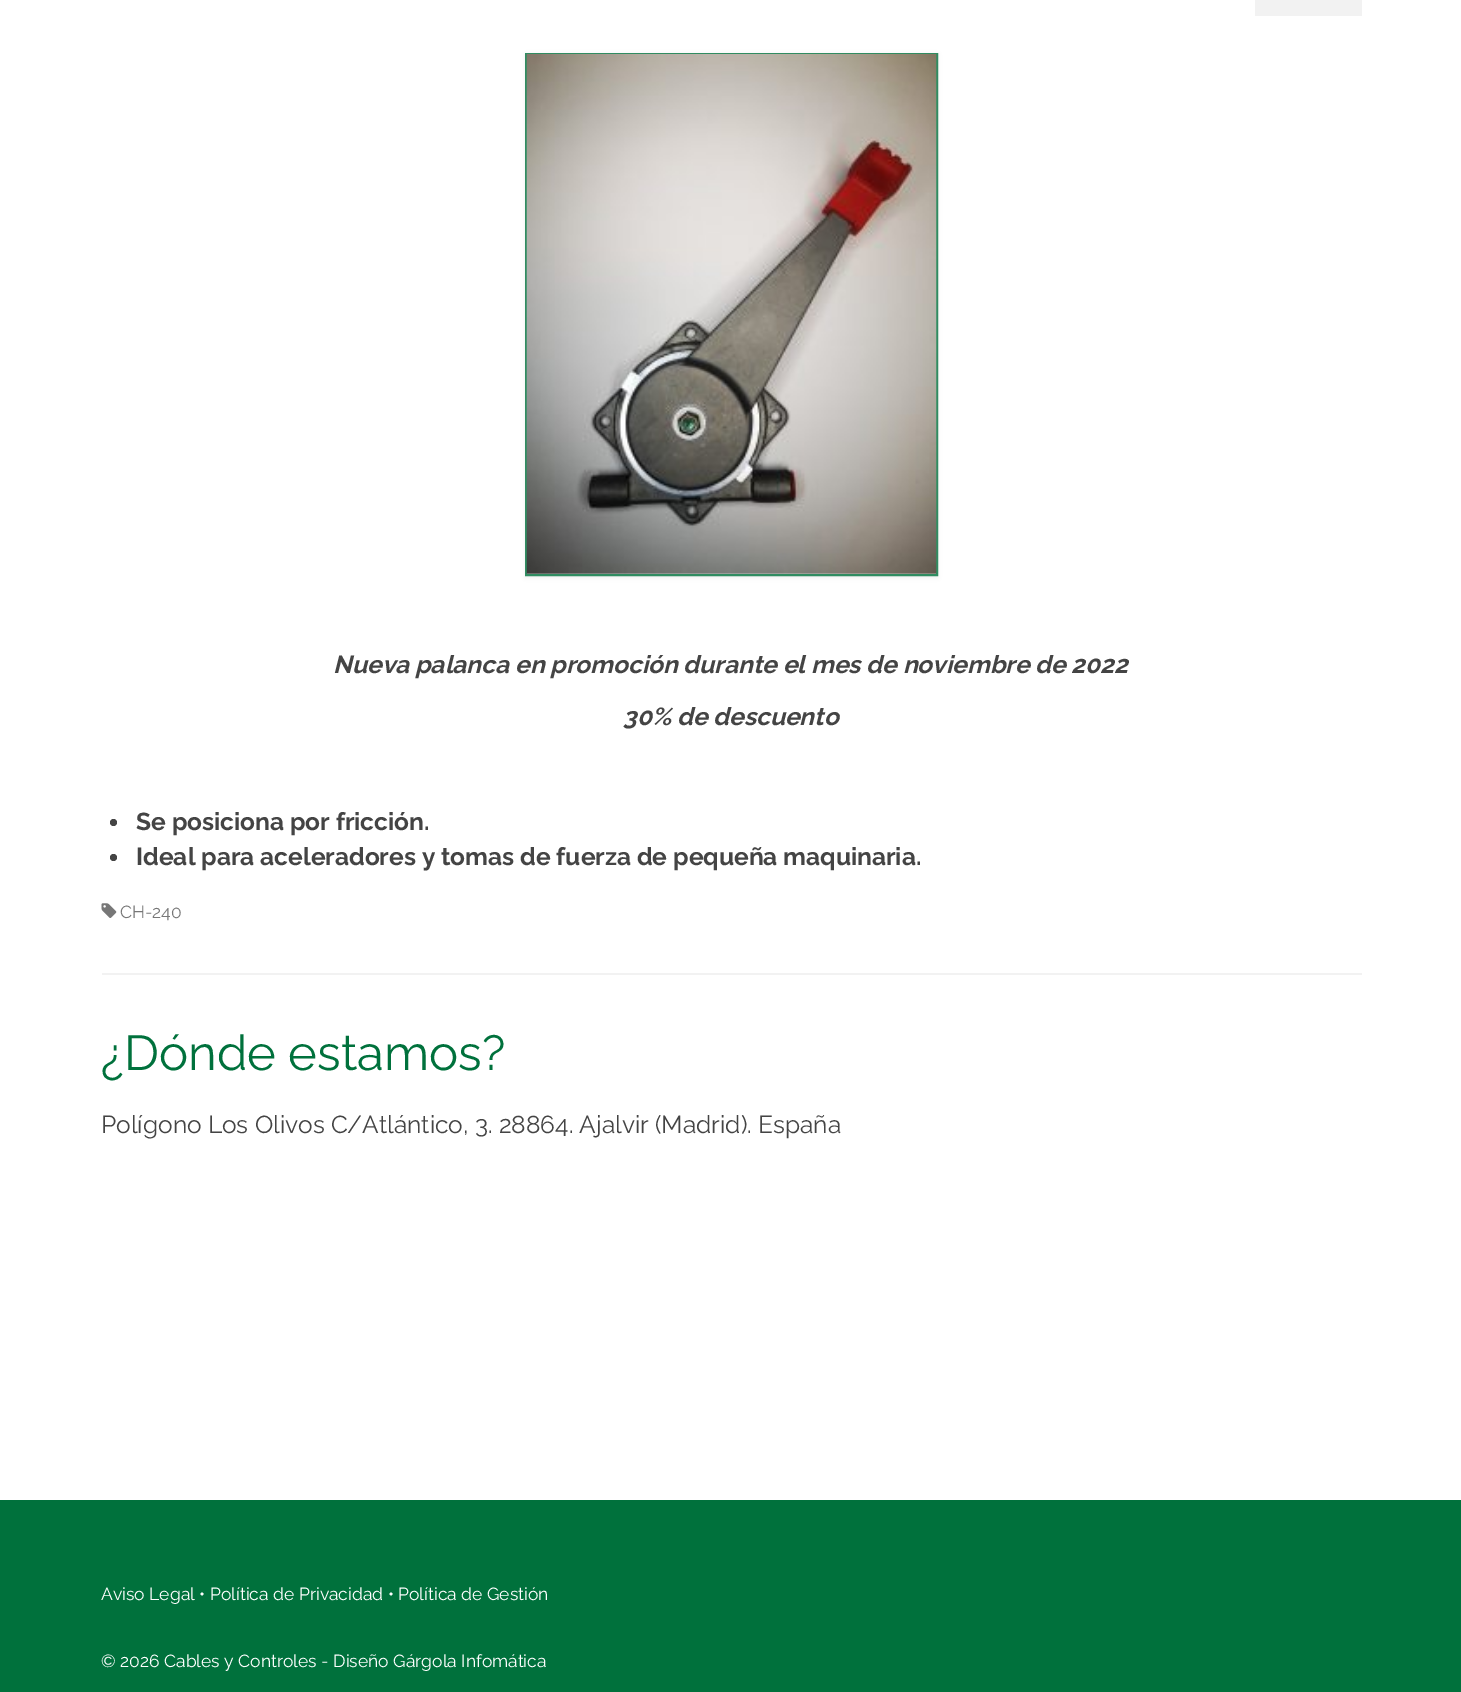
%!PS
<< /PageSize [1461 1692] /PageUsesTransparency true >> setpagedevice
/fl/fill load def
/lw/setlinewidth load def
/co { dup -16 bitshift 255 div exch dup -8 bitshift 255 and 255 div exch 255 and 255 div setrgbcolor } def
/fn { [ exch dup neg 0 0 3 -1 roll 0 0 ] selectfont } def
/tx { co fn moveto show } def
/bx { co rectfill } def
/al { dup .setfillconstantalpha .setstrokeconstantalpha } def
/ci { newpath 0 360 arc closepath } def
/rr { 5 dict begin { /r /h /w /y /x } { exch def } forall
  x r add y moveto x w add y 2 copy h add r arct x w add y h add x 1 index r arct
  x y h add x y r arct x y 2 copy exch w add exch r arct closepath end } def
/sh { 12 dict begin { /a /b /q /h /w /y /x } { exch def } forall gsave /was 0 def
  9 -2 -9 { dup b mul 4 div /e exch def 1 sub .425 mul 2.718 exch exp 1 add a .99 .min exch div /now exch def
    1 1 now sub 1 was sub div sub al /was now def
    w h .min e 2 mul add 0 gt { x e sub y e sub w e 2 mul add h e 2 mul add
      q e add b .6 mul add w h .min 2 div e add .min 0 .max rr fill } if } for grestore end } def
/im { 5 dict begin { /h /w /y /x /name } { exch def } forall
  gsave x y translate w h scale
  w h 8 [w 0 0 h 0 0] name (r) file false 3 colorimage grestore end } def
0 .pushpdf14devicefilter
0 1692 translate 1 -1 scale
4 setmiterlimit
0 0 1461 1692 16#FFFFFF bx
1255 0 107 16 16#F2F2F2 bx
16#000000 co
525 54 413 524 0 2.5 .06 sh
16#308C61 co
2 lw
526 54 411 521 rectstroke
(media/1.raw) 526 54 411 520 im
16#444444 co
113.5 822.5 3.5 ci fl
113.5 857.5 3.5 ci fl
102 973 1260 2 16#F2F2F2 bx
(media/2.raw) 101 903 16 15 im
0 1500 1461 192 16#00713C bx
(Nueva palanca en promoción durante el mes de noviembre de 2022) 333 673 /Raleway-BoldItalic 24.5 16#444444 tx
(30% de descuento) 623 725 /Raleway-BoldItalic 24.5 16#444444 tx
(Se posiciona por fricción.) 136 830 /Raleway-Bold 24.5 16#444444 tx
(Ideal para aceleradores y tomas de fuerza de pequeña maquinaria.) 136 865 /Raleway-Bold 24.5 16#444444 tx
(CH-240) 120 918 /Raleway-Regular 17.5 16#777777 tx
(¿Dónde estamos?) 101 1070 /Raleway-Regular 49 16#00713C tx
(Polígono Los Olivos C/Atlántico, 3. 28864. Ajalvir \(Madrid\). España) 101 1133 /Raleway-Regular 24.5 16#444444 tx
(Aviso Legal • Política de Privacidad • Política de Gestión) 101 1600 /Raleway-Regular 17.5 16#FFFFFF tx
(© 2026 Cables y Controles - Diseño Gárgola Infomática) 101 1667 /Raleway-Regular 17.5 16#FFFFFF tx
.poppdf14devicefilter showpage
